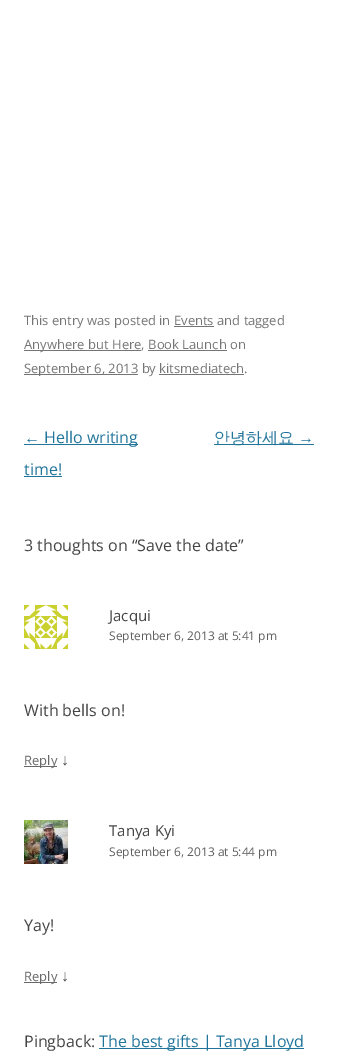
%!PS
<< /PageSize [338 1059] >> setpagedevice
/co { dup -16 bitshift 255 div exch dup -8 bitshift 255 and 255 div exch 255 and 255 div setrgbcolor } def
/fn { [ exch dup neg 0 0 3 -1 roll 0 0 ] selectfont } def
/tx { co fn moveto show } def
/bx { co rectfill } def
/im { 5 dict begin { /h /w /y /x /name } { exch def } forall
  gsave x y translate w h scale
  w h 8 [w 0 0 h 0 0] name (r) file false 3 colorimage grestore end } def
0 1059 translate 1 -1 scale
4 setmiterlimit
0 0 338 1059 16#FFFFFF bx
174 326 40 1 16#757575 bx
24 350 117 1 16#757575 bx
148 350 79 1 16#757575 bx
24 374 114 1 16#757575 bx
159 374 85 1 16#757575 bx
24 444 114 1 16#21759B bx
24 476 38 1 16#21759B bx
214 444 100 1 16#21759B bx
(media/1.raw) 24 605 44 44 im
24 766 33 1 16#686868 bx
(media/2.raw) 24 820 44 44 im
24 982 33 1 16#686868 bx
99 1048 205 1 16#21759B bx
(This entry was posted in Events and tagged) 24 325 /OpenSans-Regular 13 16#757575 tx
(Anywhere but Here, Book Launch on) 24 349 /OpenSans-Regular 13 16#757575 tx
(September 6, 2013 by kitsmediatech.) 24 373 /OpenSans-Regular 13 16#757575 tx
(←) 24 443 /LiberationSans-Regular 16 16#21759B tx
(Hello writing) 44 443 /OpenSans-Regular 16 16#21759B tx
(time!) 24 475 /OpenSans-Regular 16 16#21759B tx
(안녕하세요) 214 443 /WenQuanYiZenHei-Medium 16 16#21759B tx
(→) 298 443 /LiberationSans-Regular 16 16#21759B tx
(3 thoughts on “Save the date”) 24 551 /OpenSans-Regular 16 16#444444 tx
(Jacqui) 109 621 /OpenSans-Regular 15 16#444444 tx
(September 6, 2013 at 5:41 pm) 109 640 /OpenSans-Regular 12 16#5E5E5E tx
(With bells on!) 24 716 /OpenSans-Regular 16 16#444444 tx
(Reply) 24 765 /OpenSans-Regular 13 16#686868 tx
(↓) 61 765 /LiberationSans-Regular 16 16#444444 tx
(Tanya Kyi) 109 836 /OpenSans-Regular 15 16#444444 tx
(September 6, 2013 at 5:44 pm) 109 856 /OpenSans-Regular 12 16#5E5E5E tx
(Yay!) 24 931 /OpenSans-Regular 16 16#444444 tx
(Reply) 24 981 /OpenSans-Regular 13 16#686868 tx
(↓) 61 981 /LiberationSans-Regular 16 16#444444 tx
(Pingback:) 24 1047 /OpenSans-Regular 16 16#444444 tx
(The best gifts | Tanya Lloyd) 99 1047 /OpenSans-Regular 16 16#21759B tx
showpage
